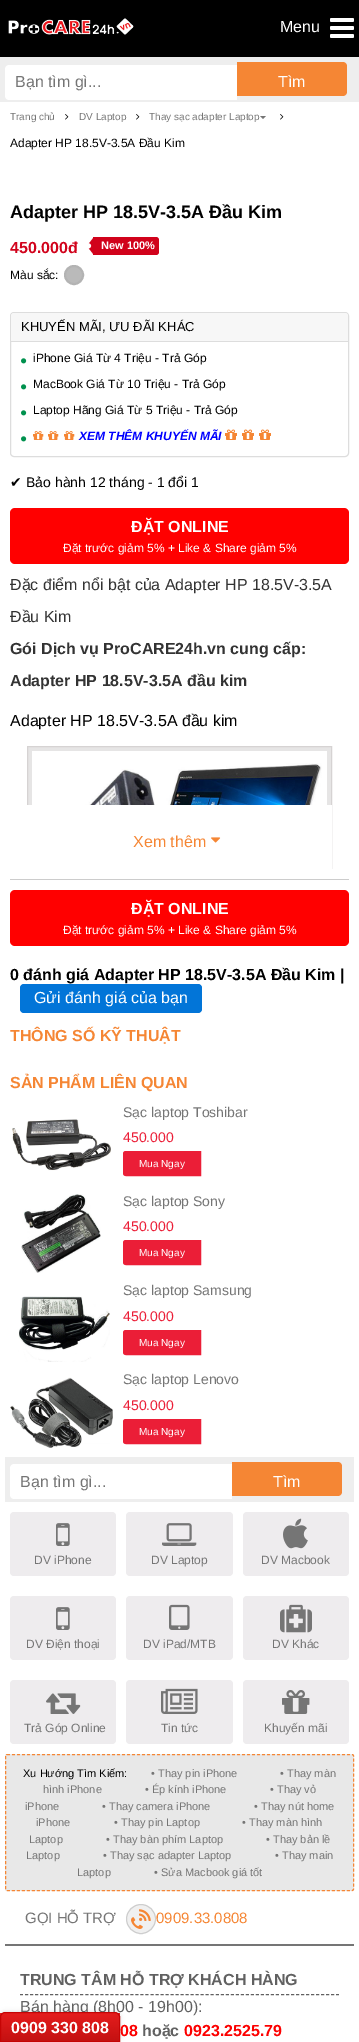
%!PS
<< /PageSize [359 2042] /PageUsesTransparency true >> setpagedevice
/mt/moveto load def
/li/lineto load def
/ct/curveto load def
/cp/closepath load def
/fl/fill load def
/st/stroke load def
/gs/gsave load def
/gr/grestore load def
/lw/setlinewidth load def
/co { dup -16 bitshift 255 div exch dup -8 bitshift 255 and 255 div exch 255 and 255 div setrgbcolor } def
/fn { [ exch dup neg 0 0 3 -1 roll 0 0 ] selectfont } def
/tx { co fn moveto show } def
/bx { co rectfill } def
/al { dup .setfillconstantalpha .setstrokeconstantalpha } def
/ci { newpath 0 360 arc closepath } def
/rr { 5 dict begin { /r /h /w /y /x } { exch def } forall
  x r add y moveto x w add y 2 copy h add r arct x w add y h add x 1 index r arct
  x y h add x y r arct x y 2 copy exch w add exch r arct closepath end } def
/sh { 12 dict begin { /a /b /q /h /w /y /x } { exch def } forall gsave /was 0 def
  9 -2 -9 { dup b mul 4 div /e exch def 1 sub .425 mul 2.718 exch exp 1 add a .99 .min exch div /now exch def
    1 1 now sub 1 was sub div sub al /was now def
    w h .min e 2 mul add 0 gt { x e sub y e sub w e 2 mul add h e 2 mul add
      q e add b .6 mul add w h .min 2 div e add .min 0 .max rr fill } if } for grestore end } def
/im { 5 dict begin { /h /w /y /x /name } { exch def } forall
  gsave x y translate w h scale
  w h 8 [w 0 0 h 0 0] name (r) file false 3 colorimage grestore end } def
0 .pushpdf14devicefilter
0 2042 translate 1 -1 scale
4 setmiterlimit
0 0 359 2042 16#FFFFFF bx
0 0 359 57 16#000000 bx
(media/1.raw) 8 18 126 17 im
(media/2.raw) 330 18 24 20 im
0 57 359 45 16#EEEEEE bx
16#FFFFFF co
9 65 mt 237 65 li 237 100 li 9 100 li 7 100 5 98 5 96 ct 5 69 li 5 67 7 65 9 65 ct cp fl
16#F58634 co
237 62 mt 343 62 li 345 62 347 64 347 66 ct 347 92 li 347 94 345 96 343 96 ct 237 96 li cp fl
(media/3.raw) 65 114 4 6 im
(media/3.raw) 136 114 4 6 im
16#757575 co
260 116 mt 266 116 li 263 119 li cp fl
(media/3.raw) 280 114 4 6 im
16#D1021B co
93 237 mt 156 237 li 157.5 237 159 238.5 159 240 ct 159 252 li 159 253.5 157.5 255 156 255 ct 93 255 li cp fl
94 237 mt 94 255 li 87 246 li cp fl
(media/4.raw) 87 243 5 6 im
16#BABABA co
74 275 9 ci gs fl gr
16#B3B3B3 co
2 lw
st
16#DDDDDD co
1 lw
10.5 312.5 338 144 3.5 rr st
16#F7F7F7 co
14 313 mt 345 313 li 346.5 313 348 314.5 348 316 ct 348 342 li 11 342 li 11 316 li 11 314.5 12.5 313 14 313 ct cp fl
11 341 337 1 16#DDDDDD bx
(media/5.raw) 21 358 6 6 im
(media/5.raw) 21 384 6 6 im
(media/5.raw) 21 410 6 6 im
(media/5.raw) 21 436 6 6 im
(media/6.raw) 33 431 11 9 im
(media/6.raw) 48 431 11 9 im
(media/6.raw) 64 431 11 9 im
(media/7.raw) 225 429 12 11 im
(media/7.raw) 242 429 12 11 im
(media/7.raw) 259 429 12 11 im
16#FF0000 co
10 508 339 56 5 rr fl
10 879 339 1 16#CCCCCC bx
28 747 303 58 16#E6E5E5 bx
16#FF0000 co
10 890 339 56 5 rr fl
gs
10 569 339 300 rectclip
16#D6D3D3 co
27.5 746.5 304 214 rectstroke
gr
(media/8.raw) 32 751 295 54 im
27 805 305 64 16#FFFFFF bx
(media/9.raw) 211 837 10 6 im
16#0275D8 co
20 984 182 29 4 rr fl
(media/10.raw) 12 1119 99 52 im
16#EB1E37 co
126 1151.5 mt 200.5 1151.5 li 200.5 1175.5 li 126 1175.5 li 124.5 1175.5 123.5 1174.5 123.5 1173 ct 123.5 1154 li 123.5 1152.5 124.5 1151.5 126 1151.5 ct cp gs fl gr
st
(media/11.raw) 21 1194 80 79 im
126 1240.5 mt 200.5 1240.5 li 200.5 1264.5 li 126 1264.5 li 124.5 1264.5 123.5 1263.5 123.5 1262 ct 123.5 1243 li 123.5 1241.5 124.5 1240.5 126 1240.5 ct cp gs fl gr
st
(media/12.raw) 18 1296 92 66 im
126 1330.5 mt 200.5 1330.5 li 200.5 1354.5 li 126 1354.5 li 124.5 1354.5 123.5 1353.5 123.5 1352 ct 123.5 1333 li 123.5 1331.5 124.5 1330.5 126 1330.5 ct cp gs fl gr
st
(media/13.raw) 10 1377 103 71 im
126 1419.5 mt 200.5 1419.5 li 200.5 1443.5 li 126 1443.5 li 124.5 1443.5 123.5 1442.5 123.5 1441 ct 123.5 1422 li 123.5 1420.5 124.5 1419.5 126 1419.5 ct cp gs fl gr
st
5 1457 349 45 16#EEEEEE bx
16#FFFFFF co
14 1464 mt 232 1464 li 232 1499 li 14 1499 li 12 1499 10 1497 10 1495 ct 10 1468 li 10 1466 12 1464 14 1464 ct cp fl
16#F58634 co
232 1462 mt 338 1462 li 340 1462 342 1464 342 1466 ct 342 1492 li 342 1494 340 1496 338 1496 ct 232 1496 li cp fl
16#EEECEE co
10 1512 106 64 4 rr fl
(media/14.raw) 56 1523 14 23 im
126 1512 107 64 4 rr fl
(media/15.raw) 162 1523 35 23 im
243 1512 106 64 4 rr fl
(media/16.raw) 283 1518 25 31 im
10 1596 106 64 4 rr fl
(media/14.raw) 56 1607 14 23 im
126 1596 107 64 4 rr fl
(media/17.raw) 169 1604 21 26 im
243 1596 106 64 4 rr fl
(media/18.raw) 280 1604 32 29 im
10 1680 106 64 4 rr fl
(media/19.raw) 46 1693 35 21 im
126 1680 107 64 4 rr fl
(media/20.raw) 161 1688 37 26 im
243 1680 106 64 4 rr fl
(media/21.raw) 282 1690 28 24 im
16#E8E8E8 co
5 1754 349 137 2 rr fl
16#F58634 co
[3 2] 0 setdash
7 1754.5 mt 352 1754.5 li 353 1754.5 353.5 1755 353.5 1756 ct 353.5 1889 li 353.5 1890 353 1890.5 352 1890.5 ct 7 1890.5 li 6 1890.5 5.5 1890 5.5 1889 ct 5.5 1756 li 5.5 1755 6 1754.5 7 1754.5 ct cp st
5 1944 349 2 16#757575 bx
16#F0F0F0 co
141 1919 14.5 ci gs fl gr
16#CECECE co
[] 0 setdash
st
(media/23.raw) 131 1917 12 12 im
(media/22.raw) 139 1909 12 12 im
16#616161 co
[3 2.02] 0 setdash
20 1994.5 mt 339 1994.5 li st
16#D9D9D9 co
0 2012 120 30 5 2.5 1 sh
(Menu) 280 32 /LiberationSans-Regular 16 16#FFFFFF tx
(Bạn tìm gì...) 15 87 /LiberationSans-Regular 16 16#757575 tx
(Tìm) 278 87 /LiberationSans-Regular 16 16#FFFFFF tx
(Trang chủ) 10 120 /LiberationSans-Regular 10 16#757575 tx
(DV Laptop) 79 120 /LiberationSans-Regular 10 16#757575 tx
(Thay sạc adapter Laptop) 149 120 /LiberationSans-Regular 10 16#757575 tx
(Adapter HP 18.5V-3.5A Đầu Kim) 10 147 /LiberationSans-Regular 12 16#000000 tx
(Adapter HP 18.5V-3.5A Đầu Kim) 10 218 /LiberationSans-Bold 18 16#000000 tx
(450.000đ) 10 253 /LiberationSans-Bold 16 16#D1021B tx
(New 100%) 101 249 /LiberationSans-Bold 11 16#FFFFFF tx
(Màu sắc:) 10 279 /LiberationSans-Regular 12 16#000000 tx
(KHUYẾN MÃI, ƯU ĐÃI KHÁC) 21 331 /LiberationSans-Regular 13 16#000000 tx
(iPhone Giá Từ 4 Triệu - Trả Góp) 33 362 /LiberationSans-Regular 12 16#000000 tx
(MacBook Giá Từ 10 Triệu - Trả Góp) 33 388 /LiberationSans-Regular 12 16#000000 tx
(Laptop Hãng Giá Từ 5 Triệu - Trả Góp) 33 414 /LiberationSans-Regular 12 16#000000 tx
(XEM THÊM KHUYẾN MÃI) 79 440 /LiberationSans-BoldItalic 12 16#0000FF tx
(✔) 10 487 /DejaVuSans-Regular 14 16#000000 tx
(Bảo hành 12 tháng - 1 đổi 1) 26 487 /LiberationSans-Regular 14 16#000000 tx
(ĐẶT ONLINE) 131 532 /LiberationSans-Bold 16 16#FFFFFF tx
(Đặt trước giảm 5% + Like & Share giảm 5%) 63 552 /LiberationSans-Regular 12 16#FFFFFF tx
(Đặc điểm nổi bật của Adapter HP 18.5V-3.5A) 10 590 /LiberationSans-Regular 16 16#333333 tx
(Đầu Kim) 10 622 /LiberationSans-Regular 16 16#333333 tx
(Gói Dịch vụ ProCARE24h.vn cung cấp:) 10 654 /LiberationSans-Bold 16 16#333333 tx
(Adapter HP 18.5V-3.5A đầu kim) 10 686 /LiberationSans-Bold 16 16#333333 tx
(Adapter HP 18.5V-3.5A đầu kim) 10 726 /LiberationSans-Regular 16 16#000000 tx
(Xem thêm) 133 847 /LiberationSans-Regular 16 16#F58634 tx
(ĐẶT ONLINE) 131 914 /LiberationSans-Bold 16 16#FFFFFF tx
(Đặt trước giảm 5% + Like & Share giảm 5%) 63 934 /LiberationSans-Regular 12 16#FFFFFF tx
(0 đánh giá Adapter HP 18.5V-3.5A Đầu Kim |) 10 980 /LiberationSans-Bold 16 16#000000 tx
(Gửi đánh giá của bạn) 34 1003 /LiberationSans-Regular 16 16#FFFFFF tx
(THÔNG SỐ KỸ THUẬT) 10 1041 /LiberationSans-Bold 16 16#F58634 tx
(SẢN PHẨM LIÊN QUAN) 10 1088 /LiberationSans-Bold 16 16#F58634 tx
(Sạc laptop Toshibar) 123 1117 /LiberationSans-Regular 14 16#757575 tx
(450.000) 123 1142 /LiberationSans-Regular 14 16#EB1E37 tx
(Mua Ngay) 139 1167 /LiberationSans-Regular 10 16#FFFFFF tx
(Sạc laptop Sony) 123 1206 /LiberationSans-Regular 14 16#757575 tx
(450.000) 123 1231 /LiberationSans-Regular 14 16#EB1E37 tx
(Mua Ngay) 139 1256 /LiberationSans-Regular 10 16#FFFFFF tx
(Sạc laptop Samsung) 123 1295 /LiberationSans-Regular 14 16#757575 tx
(450.000) 123 1321 /LiberationSans-Regular 14 16#EB1E37 tx
(Mua Ngay) 139 1346 /LiberationSans-Regular 10 16#FFFFFF tx
(Sạc laptop Lenovo) 123 1384 /LiberationSans-Regular 14 16#757575 tx
(450.000) 123 1410 /LiberationSans-Regular 14 16#EB1E37 tx
(Mua Ngay) 139 1435 /LiberationSans-Regular 10 16#FFFFFF tx
(Bạn tìm gì...) 20 1487 /LiberationSans-Regular 16 16#757575 tx
(Tìm) 273 1487 /LiberationSans-Regular 16 16#FFFFFF tx
(DV iPhone) 34 1564 /LiberationSans-Regular 12 16#757575 tx
(DV Laptop) 151 1564 /LiberationSans-Regular 12 16#757575 tx
(DV Macbook) 261 1564 /LiberationSans-Regular 12 16#757575 tx
(DV Điện thoại) 26 1648 /LiberationSans-Regular 12 16#757575 tx
(DV iPad/MTB) 143 1648 /LiberationSans-Regular 12 16#757575 tx
(DV Khác) 272 1648 /LiberationSans-Regular 12 16#757575 tx
(Trả Góp Online) 24 1732 /LiberationSans-Regular 12 16#757575 tx
(Tin tức) 161 1732 /LiberationSans-Regular 12 16#757575 tx
(Khuyến mãi) 264 1732 /LiberationSans-Regular 12 16#757575 tx
(Xu Hướng Tìm Kiếm:) 23 1777 /LiberationSans-Regular 11 16#000000 tx
(• Thay pin iPhone) 151 1777 /LiberationSans-Regular 11 16#757575 tx
(• Thay màn) 280 1777 /LiberationSans-Regular 11 16#757575 tx
(hình iPhone) 43 1793 /LiberationSans-Regular 11 16#757575 tx
(• Ép kính iPhone) 145 1793 /LiberationSans-Regular 11 16#757575 tx
(• Thay vỏ) 270 1793 /LiberationSans-Regular 11 16#757575 tx
(iPhone) 25 1810 /LiberationSans-Regular 11 16#757575 tx
(• Thay camera iPhone) 102 1810 /LiberationSans-Regular 11 16#757575 tx
(• Thay nút home) 254 1810 /LiberationSans-Regular 11 16#757575 tx
(iPhone) 36 1826 /LiberationSans-Regular 11 16#757575 tx
(• Thay pin Laptop) 114 1826 /LiberationSans-Regular 11 16#757575 tx
(• Thay màn hình) 242 1826 /LiberationSans-Regular 11 16#757575 tx
(Laptop) 29 1843 /LiberationSans-Regular 11 16#757575 tx
(• Thay bàn phím Laptop) 106 1843 /LiberationSans-Regular 11 16#757575 tx
(• Thay bản lề) 266 1843 /LiberationSans-Regular 11 16#757575 tx
(Laptop) 26 1859 /LiberationSans-Regular 11 16#757575 tx
(• Thay sạc adapter Laptop) 103 1859 /LiberationSans-Regular 11 16#757575 tx
(• Thay main) 275 1859 /LiberationSans-Regular 11 16#757575 tx
(Laptop) 77 1876 /LiberationSans-Regular 11 16#757575 tx
(• Sửa Macbook giá tốt) 154 1876 /LiberationSans-Regular 11 16#757575 tx
(GỌI HỖ TRỢ) 25 1923 /LiberationSans-Regular 15 16#757575 tx
(0909.33.0808) 156 1923 /LiberationSans-Regular 15 16#F58634 tx
(TRUNG TÂM HỖ TRỢ KHÁCH HÀNG) 20 1985 /LiberationSans-Bold 16 16#616161 tx
(Bán hàng \(8h00 - 19h00\):) 20 2012 /LiberationSans-Regular 16 16#616161 tx
(08) 120 2036 /LiberationSans-Bold 16 16#FC0000 tx
(hoặc) 142 2036 /LiberationSans-Bold 16 16#616161 tx
(0923.2525.79) 184 2036 /LiberationSans-Bold 16 16#FC0000 tx
gs
5 2012 mt 115 2012 li 118 2012 120 2014 120 2017 ct 120 2042 li 0 2042 li 0 2017 li 0 2014 2 2012 5 2012 ct cp clip newpath
gs 0 2013 mt 120 2013 li 120 2041 li 0 2041 li cp clip newpath
<< /ShadingType 2 /ColorSpace /DeviceRGB /Coords [60 2041 60 2013] /Extend [true true] /Function << /FunctionType 2 /Domain [0 1] /C0 [.769 .067 .067] /C1 [.898 .114 .114] /N 1 >> >> shfill gr
gr
16#C50505 co
[] 0 setdash
5 2012.5 mt 115 2012.5 li 117.5 2012.5 119.5 2014.5 119.5 2017 ct 119.5 2041.5 li .5 2041.5 li .5 2017 li .5 2014.5 2.5 2012.5 5 2012.5 ct cp st
(0909 330 808) 11 2033 /LiberationSans-Bold 16 16#FFFFFF tx
.poppdf14devicefilter showpage
